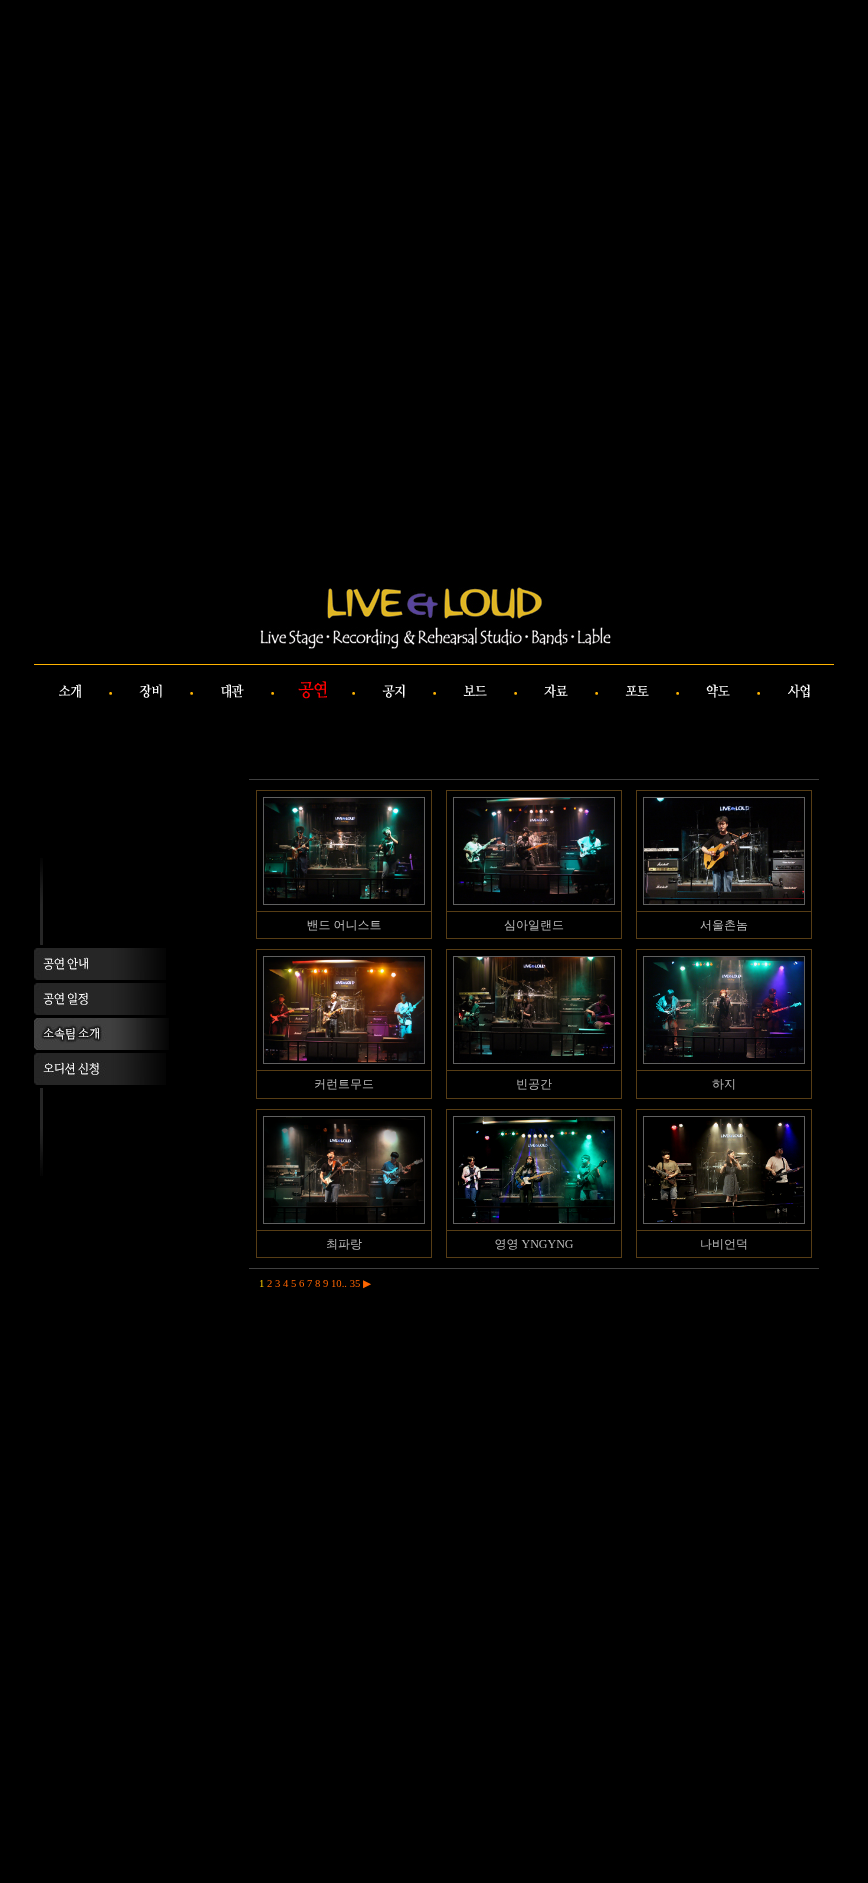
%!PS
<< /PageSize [868 1883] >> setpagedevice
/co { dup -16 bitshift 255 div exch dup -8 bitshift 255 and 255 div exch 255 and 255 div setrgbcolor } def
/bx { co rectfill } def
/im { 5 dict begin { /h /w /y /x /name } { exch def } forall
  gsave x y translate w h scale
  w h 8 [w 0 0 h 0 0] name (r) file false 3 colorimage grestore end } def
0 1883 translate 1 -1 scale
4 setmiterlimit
0 0 868 1883 16#000000 bx
(media/1.raw) 260 587 351 62 im
34 664 800 1 16#FFB400 bx
(media/2.raw) 59 684 22 14 im
(media/3.raw) 107 690 5 5 im
(media/4.raw) 139 684 23 14 im
(media/3.raw) 188 690 5 5 im
(media/5.raw) 221 684 23 14 im
(media/3.raw) 269 690 5 5 im
(media/6.raw) 295 681 32 22 im
(media/3.raw) 350 690 5 5 im
(media/7.raw) 382 684 23 14 im
(media/3.raw) 431 690 5 5 im
(media/8.raw) 463 685 24 11 im
(media/3.raw) 512 690 5 5 im
(media/9.raw) 544 684 24 14 im
(media/3.raw) 593 690 5 5 im
(media/10.raw) 625 685 24 11 im
(media/3.raw) 674 690 5 5 im
(media/11.raw) 706 684 24 14 im
(media/3.raw) 755 690 5 5 im
(media/12.raw) 788 684 22 14 im
(media/13.raw) 40 858 3 87 im
(media/14.raw) 34 948 132 32 im
(media/15.raw) 34 983 132 32 im
(media/16.raw) 34 1018 135 32 im
(media/17.raw) 34 1053 132 32 im
(media/18.raw) 40 1088 3 88 im
(media/19.raw) 249 779 570 510 im
showpage
